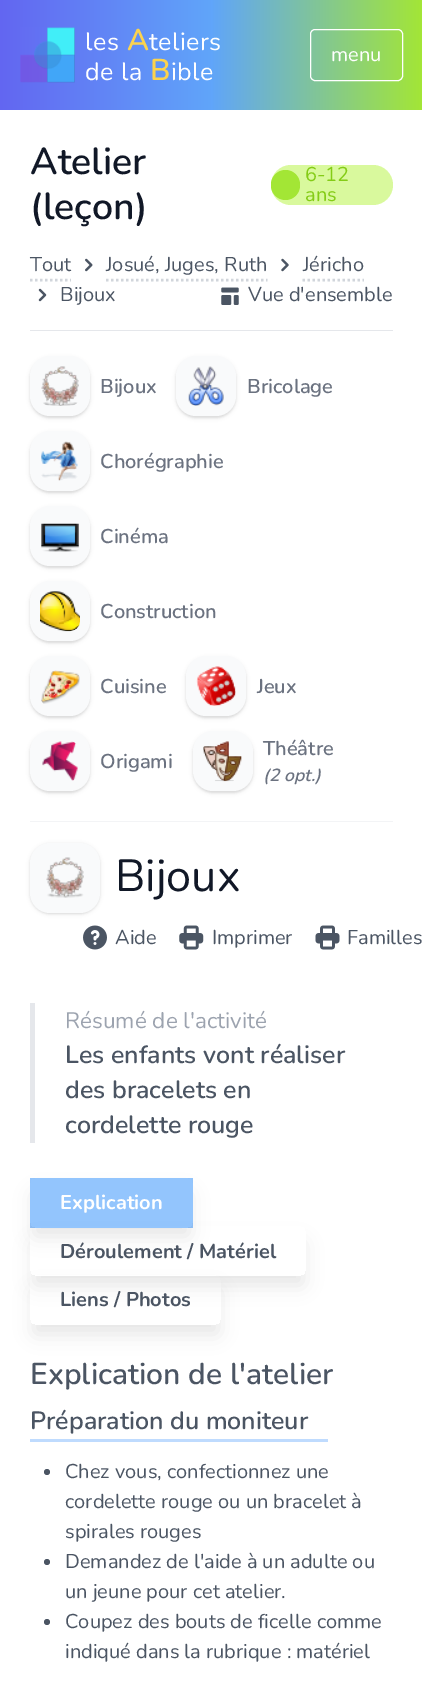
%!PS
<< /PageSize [422 1688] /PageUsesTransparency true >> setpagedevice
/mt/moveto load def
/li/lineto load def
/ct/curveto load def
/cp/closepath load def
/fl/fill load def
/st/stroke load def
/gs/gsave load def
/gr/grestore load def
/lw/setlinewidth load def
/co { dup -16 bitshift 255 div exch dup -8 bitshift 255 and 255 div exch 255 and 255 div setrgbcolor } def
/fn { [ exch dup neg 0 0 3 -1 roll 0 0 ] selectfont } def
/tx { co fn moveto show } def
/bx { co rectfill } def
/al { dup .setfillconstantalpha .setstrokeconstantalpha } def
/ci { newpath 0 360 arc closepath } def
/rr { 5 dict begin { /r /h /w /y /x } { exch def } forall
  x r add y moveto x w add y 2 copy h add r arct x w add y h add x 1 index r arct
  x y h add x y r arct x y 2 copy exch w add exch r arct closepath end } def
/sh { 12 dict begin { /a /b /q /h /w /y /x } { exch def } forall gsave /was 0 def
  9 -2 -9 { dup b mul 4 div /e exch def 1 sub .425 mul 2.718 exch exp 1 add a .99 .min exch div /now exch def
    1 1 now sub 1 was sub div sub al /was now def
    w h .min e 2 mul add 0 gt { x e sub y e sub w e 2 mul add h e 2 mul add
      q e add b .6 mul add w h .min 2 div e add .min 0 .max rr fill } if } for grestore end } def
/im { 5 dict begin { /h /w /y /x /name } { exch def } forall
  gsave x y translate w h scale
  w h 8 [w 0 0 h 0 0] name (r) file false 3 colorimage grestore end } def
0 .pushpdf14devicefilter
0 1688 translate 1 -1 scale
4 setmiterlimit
0 0 422 1688 16#FFFFFF bx
gs 0 0 mt 422 0 li 422 110 li 0 110 li cp clip newpath
<< /ShadingType 2 /ColorSpace /DeviceRGB /Coords [0 55 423 55] /Extend [true true] /Function << /FunctionType 3 /Domain [0 1] /Functions [<< /FunctionType 2 /Domain [0 1] /C0 [.388 .4 .945] /C1 [.376 .647 .98] /N 1 >> << /FunctionType 2 /Domain [0 1] /C0 [.376 .647 .98] /C1 [.639 .902 .208] /N 1 >>] /Bounds [.5] /Encode [0 1 0 1] >> >> shfill gr
(media/1.raw) 20 27 55 56 im
310.5 29.5 92 51 4.5 rr st
16#D9F99D co
271 165 122 40 20 rr fl
16#A3E635 co
271 170 29 30 14.5 rr fl
16#D1D5DB co
2.5 lw
[2.5 2.5] 0 setdash
30 280 mt 71 280 li st
(media/2.raw) 85 258 8 14 im
106 280 mt 267.5 280 li st
(media/3.raw) 281 258 8 14 im
302.5 280 mt 364 280 li st
(media/4.raw) 38 288 9 14 im
(media/5.raw) 221 287 18 18 im
30 330 363 1 16#E5E7EB bx
16#000000 co
30 358 60 60 20 1 .06 sh
30 358 60 60 20 2 .1 sh
16#F9FAFB co
30 356 60 60 20 rr fl
(media/6.raw) 41 366 38 40 im
16#000000 co
176 358 60 60 20 1 .06 sh
176 358 60 60 20 2 .1 sh
16#F9FAFB co
176 356 60 60 20 rr fl
(media/7.raw) 188 366 36 40 im
16#000000 co
30 433 60 60 20 1 .06 sh
30 433 60 60 20 2 .1 sh
16#F9FAFB co
30 431 60 60 20 rr fl
(media/8.raw) 41 441 37 40 im
16#000000 co
30 508 60 60 20 1 .06 sh
30 508 60 60 20 2 .1 sh
16#F9FAFB co
30 506 60 60 20 rr fl
(media/9.raw) 41 523 38 29 im
16#000000 co
30 583 60 60 20 1 .06 sh
30 583 60 60 20 2 .1 sh
16#F9FAFB co
30 581 60 60 20 rr fl
(media/10.raw) 40 591 40 41 im
16#000000 co
30 658 60 60 20 1 .06 sh
30 658 60 60 20 2 .1 sh
16#F9FAFB co
30 656 60 60 20 rr fl
(media/11.raw) 41 670 39 34 im
16#000000 co
186 658 60 60 20 1 .06 sh
186 658 60 60 20 2 .1 sh
16#F9FAFB co
186 656 60 60 20 rr fl
(media/12.raw) 196 666 40 40 im
16#000000 co
30 733 60 60 20 1 .06 sh
30 733 60 60 20 2 .1 sh
16#F9FAFB co
30 731 60 60 20 rr fl
(media/13.raw) 42 741 36 40 im
16#000000 co
193 733 60 60 20 1 .06 sh
193 733 60 60 20 2 .1 sh
16#F9FAFB co
193 731 60 60 20 rr fl
(media/14.raw) 203 741 39 41 im
30 821 363 1 16#F3F4F6 bx
16#000000 co
30 844 70 70 20 1 .06 sh
30 844 70 70 20 2 .1 sh
16#F9FAFB co
30 843 70 70 20 rr fl
(media/15.raw) 46 857 38 41 im
(media/16.raw) 83 925 24 25 im
(media/17.raw) 179 925 25 25 im
(media/18.raw) 315 925 25 25 im
30 1003 5 140 16#E5E7EB bx
30 1178 163 50 16#93C5FD bx
gs
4 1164 mt 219 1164 li 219 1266 li 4 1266 li cp 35 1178 mt 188 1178 li 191 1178 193 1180 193 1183 ct 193 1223 li 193 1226 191 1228 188 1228 ct 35 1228 li 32 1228 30 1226 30 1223 ct 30 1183 li 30 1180 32 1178 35 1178 ct cp eoclip newpath
16#000000 co
34 1194 155 42 1 9.5 .1 sh
gr
gs
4 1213 mt 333 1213 li 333 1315 li 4 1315 li cp 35 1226 mt 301 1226 li 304 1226 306 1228 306 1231 ct 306 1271 li 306 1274 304 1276 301 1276 ct 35 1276 li 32 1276 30 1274 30 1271 ct 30 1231 li 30 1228 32 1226 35 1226 ct cp eoclip newpath
16#000000 co
34 1243 269 42 1 9.5 .1 sh
gr
gs
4 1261 mt 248 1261 li 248 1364 li 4 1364 li cp 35 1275 mt 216 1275 li 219 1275 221 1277 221 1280 ct 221 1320 li 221 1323 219 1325 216 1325 ct 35 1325 li 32 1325 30 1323 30 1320 ct 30 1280 li 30 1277 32 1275 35 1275 ct cp eoclip newpath
16#000000 co
34 1291 184 43 1 9.5 .1 sh
gr
30 1439 298 3 16#BFDBFE bx
16#4B5563 co
47 1472 3 ci fl
47 1562 3 ci fl
47 1622 3 ci fl
/Nunito-Regular 25 fn
16#FFFFFF co
85 50 mt .5 0 (les) ashow
/Nunito-SemiBold 30 fn
16#FCD34D co
127 50 mt .5 0 (A) ashow
/Nunito-Regular 25 fn
16#FFFFFF co
149 50 mt .5 0 (teliers) ashow
85 80 mt .5 0 (de la) ashow
/Nunito-SemiBold 30 fn
16#FCD34D co
150 80 mt .5 0 (B) ashow
/Nunito-Regular 25 fn
16#FFFFFF co
171 80 mt .5 0 (ible) ashow
(menu) 331 61 /Nunito-Regular 20 16#FFFFFF tx
(Atelier) 30 174 /Nunito-SemiBold 37.5 16#111827 tx
(6-12) 305 181 /Nunito-Regular 20 16#84CC16 tx
(ans) 305 201 /Nunito-Regular 20 16#84CC16 tx
(\(leçon\)) 30 219 /Nunito-SemiBold 37.5 16#111827 tx
(Tout) 30 271 /Nunito-Regular 20 16#4B5563 tx
(Josué, Juges, Ruth) 106 271 /Nunito-Regular 20 16#4B5563 tx
(Jéricho) 303 271 /Nunito-Regular 20 16#4B5563 tx
(Bijoux) 60 301 /Nunito-Regular 20 16#4B5563 tx
(Vue d'ensemble) 248 301 /Nunito-Regular 20 16#4B5563 tx
(Bijoux) 100 393 /Nunito-SemiBold 20 16#6B7280 tx
(Bricolage) 247 393 /Nunito-SemiBold 20 16#6B7280 tx
(Chorégraphie) 100 468 /Nunito-SemiBold 20 16#6B7280 tx
(Cinéma) 100 543 /Nunito-SemiBold 20 16#6B7280 tx
(Construction) 100 618 /Nunito-SemiBold 20 16#6B7280 tx
(Cuisine) 100 693 /Nunito-SemiBold 20 16#6B7280 tx
(Jeux) 257 693 /Nunito-SemiBold 20 16#6B7280 tx
(Origami) 100 768 /Nunito-SemiBold 20 16#6B7280 tx
(Théâtre) 263 755 /Nunito-SemiBold 20 16#6B7280 tx
(\(2 opt.\)) 263 781 /Nunito-SemiBoldItalic 17.5 16#6B7280 tx
(Bijoux) 115 891 /Nunito-Regular 45 16#111827 tx
(Aide) 115 944 /Nunito-Regular 20 16#4B5563 tx
(Imprimer) 212 944 /Nunito-Regular 20 16#4B5563 tx
(Familles) 347 944 /Nunito-Regular 20 16#4B5563 tx
(Résumé de l'activité) 65 1028 /Nunito-Regular 22.5 16#9CA3AF tx
(Les enfants vont réaliser) 65 1063 /Nunito-SemiBold 25 16#4B5563 tx
(des bracelets en) 65 1098 /Nunito-SemiBold 25 16#4B5563 tx
(cordelette rouge) 65 1133 /Nunito-SemiBold 25 16#4B5563 tx
(Explication) 60 1209 /Nunito-Bold 20 16#FFFFFF tx
(Déroulement / Matériel) 60 1258 /Nunito-Bold 20 16#4B5563 tx
(Liens / Photos) 60 1306 /Nunito-Bold 20 16#4B5563 tx
(Explication de l'atelier) 30 1384 /Nunito-SemiBold 30 16#4B5563 tx
(Préparation du moniteur) 30 1429 /Nunito-SemiBold 25 16#4B5563 tx
(Chez vous, confectionnez une) 65 1478 /Nunito-Regular 20 16#4B5563 tx
(cordelette rouge ou un bracelet à) 65 1508 /Nunito-Regular 20 16#4B5563 tx
(spirales rouges) 65 1538 /Nunito-Regular 20 16#4B5563 tx
(Demandez de l'aide à un adulte ou) 65 1568 /Nunito-Regular 20 16#4B5563 tx
(un jeune pour cet atelier.) 65 1598 /Nunito-Regular 20 16#4B5563 tx
(Coupez des bouts de ficelle comme) 65 1628 /Nunito-Regular 20 16#4B5563 tx
(indiqué dans la rubrique : matériel) 65 1658 /Nunito-Regular 20 16#4B5563 tx
.poppdf14devicefilter showpage
